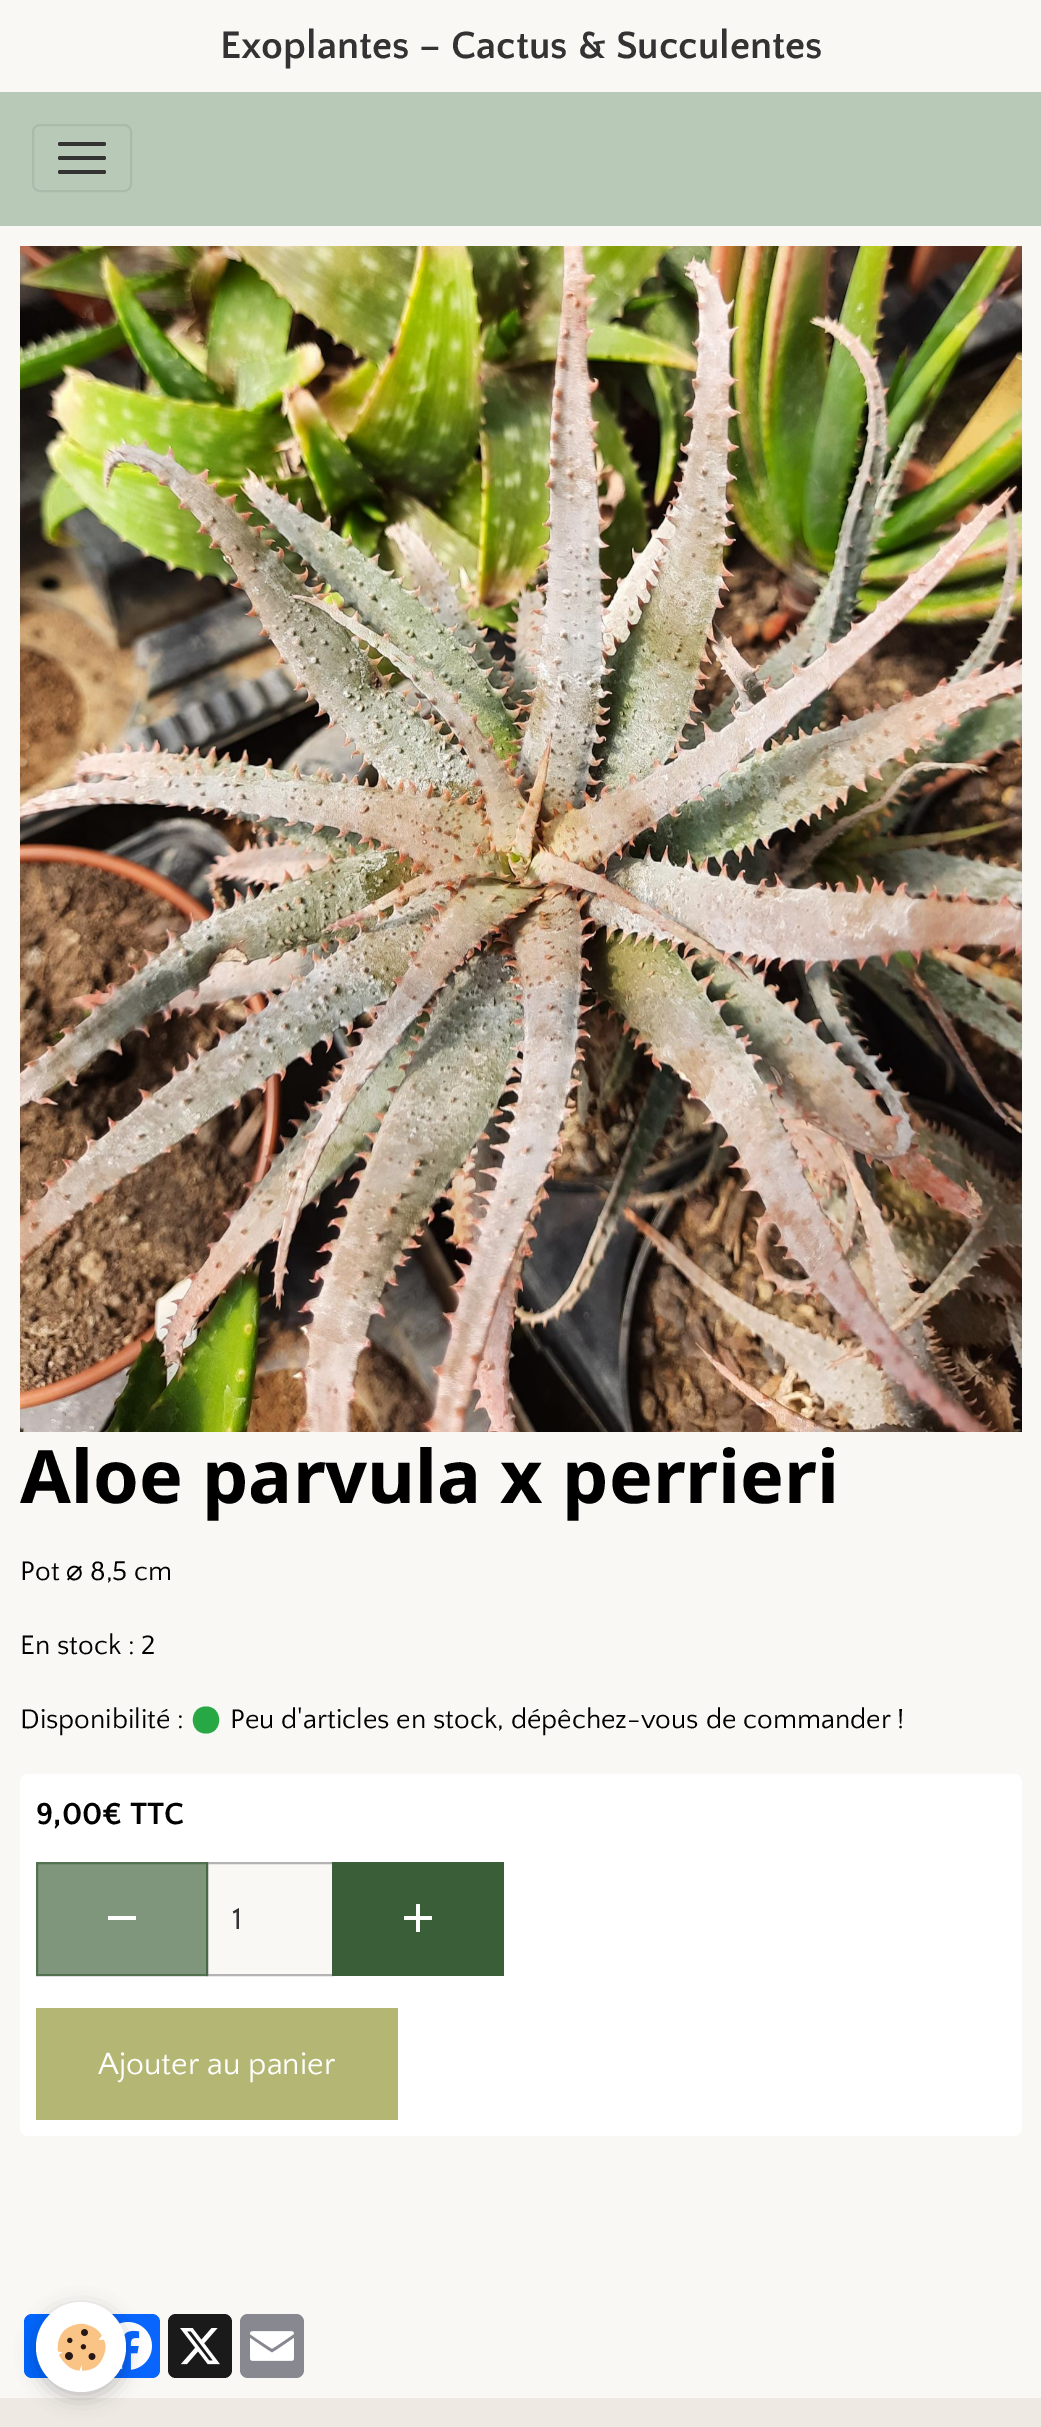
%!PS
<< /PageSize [1041 2427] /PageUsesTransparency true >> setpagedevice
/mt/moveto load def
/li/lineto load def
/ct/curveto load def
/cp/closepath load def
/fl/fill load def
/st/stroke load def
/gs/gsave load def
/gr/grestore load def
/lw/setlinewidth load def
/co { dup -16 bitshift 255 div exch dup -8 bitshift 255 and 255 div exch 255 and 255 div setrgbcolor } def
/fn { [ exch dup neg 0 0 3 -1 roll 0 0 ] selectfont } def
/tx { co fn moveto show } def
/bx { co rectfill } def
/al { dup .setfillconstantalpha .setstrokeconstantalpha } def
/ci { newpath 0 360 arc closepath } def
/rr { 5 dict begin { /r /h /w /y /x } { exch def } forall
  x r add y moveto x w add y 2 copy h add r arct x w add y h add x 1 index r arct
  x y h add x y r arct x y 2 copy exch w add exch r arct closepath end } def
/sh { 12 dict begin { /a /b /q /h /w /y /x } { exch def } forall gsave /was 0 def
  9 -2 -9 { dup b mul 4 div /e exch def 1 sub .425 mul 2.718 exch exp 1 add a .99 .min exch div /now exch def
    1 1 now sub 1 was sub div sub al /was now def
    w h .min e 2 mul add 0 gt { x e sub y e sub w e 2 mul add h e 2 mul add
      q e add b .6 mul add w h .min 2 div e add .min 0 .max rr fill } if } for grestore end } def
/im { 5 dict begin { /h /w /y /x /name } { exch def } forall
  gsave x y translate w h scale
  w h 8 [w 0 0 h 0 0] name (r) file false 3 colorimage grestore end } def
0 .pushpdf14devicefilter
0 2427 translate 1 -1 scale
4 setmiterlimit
0 0 1041 2427 16#FAF8F5 bx
0 92 1041 134 16#B8C9B8 bx
16#ABBAAB co
2 lw
33 125 98 66 7 rr st
16#333333 co
58 142 48 4 2 rr fl
58 156 48 4 2 rr fl
58 170 48 4 2 rr fl
(media/1.raw) 20 246 1002 1186 im
16#28A745 co
206 1706.5 mt 223.5 1706.5 223.5 1733.5 206 1733.5 ct 188.5 1733.5 188.5 1706.5 206 1706.5 ct cp fl
16#FFFFFF co
20 1774 1002 362 8 rr fl
16#FAF8F5 co
207 1863 mt 333 1863 li 333 1975 li 207 1975 li cp gs fl gr
16#B3B3B3 co
st
0.65 al
36 1862 172 114 16#3A5E37 bx
37 1863 170 112 rectstroke
1 al
108 1916 28 4 16#FFFFFF bx
332 1862 172 114 16#3A5E37 bx
(media/2.raw) 404 1904 28 28 im
36 2008 362 112 16#B4B773 bx
16#0166FF co
24 2314 64 64 8 rr fl
16#0866FF co
96 2314 64 64 8 rr fl
(media/3.raw) 119 2322 33 48 im
16#1A1A1A co
168 2314 64 64 8 rr fl
(media/4.raw) 180 2328 40 37 im
16#888990 co
240 2314 64 64 8 rr fl
(media/5.raw) 250 2331 44 30 im
0 2398 1041 29 16#EEEAE3 bx
16#000000 co
36 2308 90 90 45 10 .24 sh
16#FFFFFF co
81 2347 45 ci fl
(media/6.raw) 57 2323 49 48 im
(Exoplantes – Cactus & Succulentes) 220 58 /QuattrocentoSans-Bold 40 16#333333 tx
(Aloe parvula x perrieri) 20 1503 /NotoSans-Bold 73.6 16#000000 tx
(Pot) 20 1580 /QuattrocentoSans-Regular 28 16#000000 tx
(⌀) 66 1580 /DejaVuSans-Regular 28 16#000000 tx
(8,5 cm) 90 1580 /QuattrocentoSans-Regular 28 16#000000 tx
(En stock : 2) 20 1654 /QuattrocentoSans-Regular 28 16#000000 tx
(Disponibilité :) 20 1728 /QuattrocentoSans-Regular 28 16#000000 tx
(Peu d'articles en stock, dépêchez-vous de commander !) 230 1728 /QuattrocentoSans-Regular 28 16#000000 tx
(9,00€ TTC) 36 1824 /QuattrocentoSans-Bold 32 16#000000 tx
(1) 232 1929 /QuattrocentoSans-Regular 32 16#333333 tx
(Ajouter au panier) 98 2074 /QuattrocentoSans-Regular 32 16#FFFFFF tx
.poppdf14devicefilter showpage
